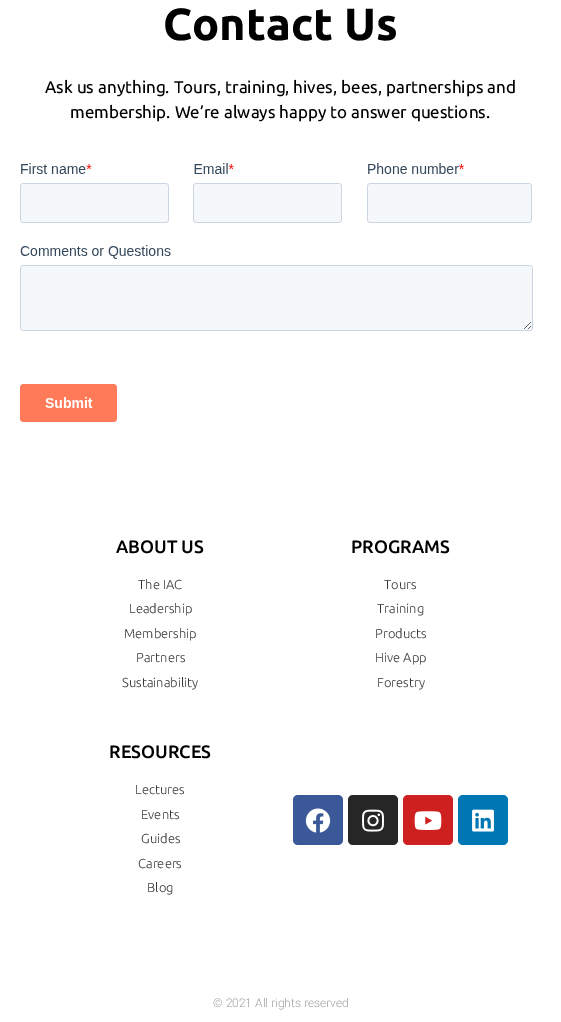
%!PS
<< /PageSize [561 1022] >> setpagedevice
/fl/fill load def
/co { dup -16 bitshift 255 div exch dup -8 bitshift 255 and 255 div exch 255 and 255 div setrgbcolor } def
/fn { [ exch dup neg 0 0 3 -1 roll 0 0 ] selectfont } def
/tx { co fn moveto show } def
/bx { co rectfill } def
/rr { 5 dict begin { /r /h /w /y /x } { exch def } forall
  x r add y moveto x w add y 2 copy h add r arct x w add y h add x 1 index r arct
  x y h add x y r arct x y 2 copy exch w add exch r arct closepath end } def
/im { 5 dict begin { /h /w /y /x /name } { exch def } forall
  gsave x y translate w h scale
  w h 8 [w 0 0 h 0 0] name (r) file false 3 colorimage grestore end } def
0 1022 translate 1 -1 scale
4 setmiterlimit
0 0 561 1022 16#FFFFFF bx
(media/1.raw) 20 163 513 259 im
16#3B5998 co
293 795 50 50 5 rr fl
(media/2.raw) 305 808 26 25 im
16#262626 co
348 795 50 50 5 rr fl
(media/3.raw) 362 809 22 23 im
16#CD201F co
403 795 50 50 5 rr fl
(media/4.raw) 414 811 28 19 im
16#0077B5 co
458 795 50 50 5 rr fl
(media/5.raw) 472 809 22 23 im
(Contact Us) 163 40 /Ubuntu-Bold 45 16#000000 tx
(Ask us anything. Tours, training, hives, bees, partnerships and) 45 93 /Ubuntu-Regular 17 16#000000 tx
(membership. We’re always happy to answer questions.) 70 118 /Ubuntu-Regular 17 16#000000 tx
(ABOUT US) 116 553 /Ubuntu-Medium 18 16#000000 tx
(The IAC) 138 589 /Ubuntu-Light 13 16#363636 tx
(Leadership) 129 613 /Ubuntu-Light 13 16#363636 tx
(Membership) 124 638 /Ubuntu-Light 13 16#363636 tx
(Partners) 136 662 /Ubuntu-Light 13 16#363636 tx
(Sustainability) 122 687 /Ubuntu-Light 13 16#363636 tx
(PROGRAMS) 351 553 /Ubuntu-Medium 18 16#000000 tx
(Tours) 384 589 /Ubuntu-Light 13 16#363636 tx
(Training) 377 613 /Ubuntu-Light 13 16#363636 tx
(Products) 375 638 /Ubuntu-Light 13 16#363636 tx
(Hive App) 375 662 /Ubuntu-Light 13 16#363636 tx
(Forestry) 377 687 /Ubuntu-Light 13 16#363636 tx
(RESOURCES) 109 758 /Ubuntu-Medium 18 16#000000 tx
(Lectures) 135 794 /Ubuntu-Light 13 16#363636 tx
(Events) 141 819 /Ubuntu-Light 13 16#363636 tx
(Guides) 141 843 /Ubuntu-Light 13 16#363636 tx
(Careers) 138 868 /Ubuntu-Light 13 16#363636 tx
(Blog) 147 892 /Ubuntu-Light 13 16#363636 tx
(© 2021 All rights reserved) 213 1007 /Roboto-Light 12 16#9E9E9E tx
showpage
